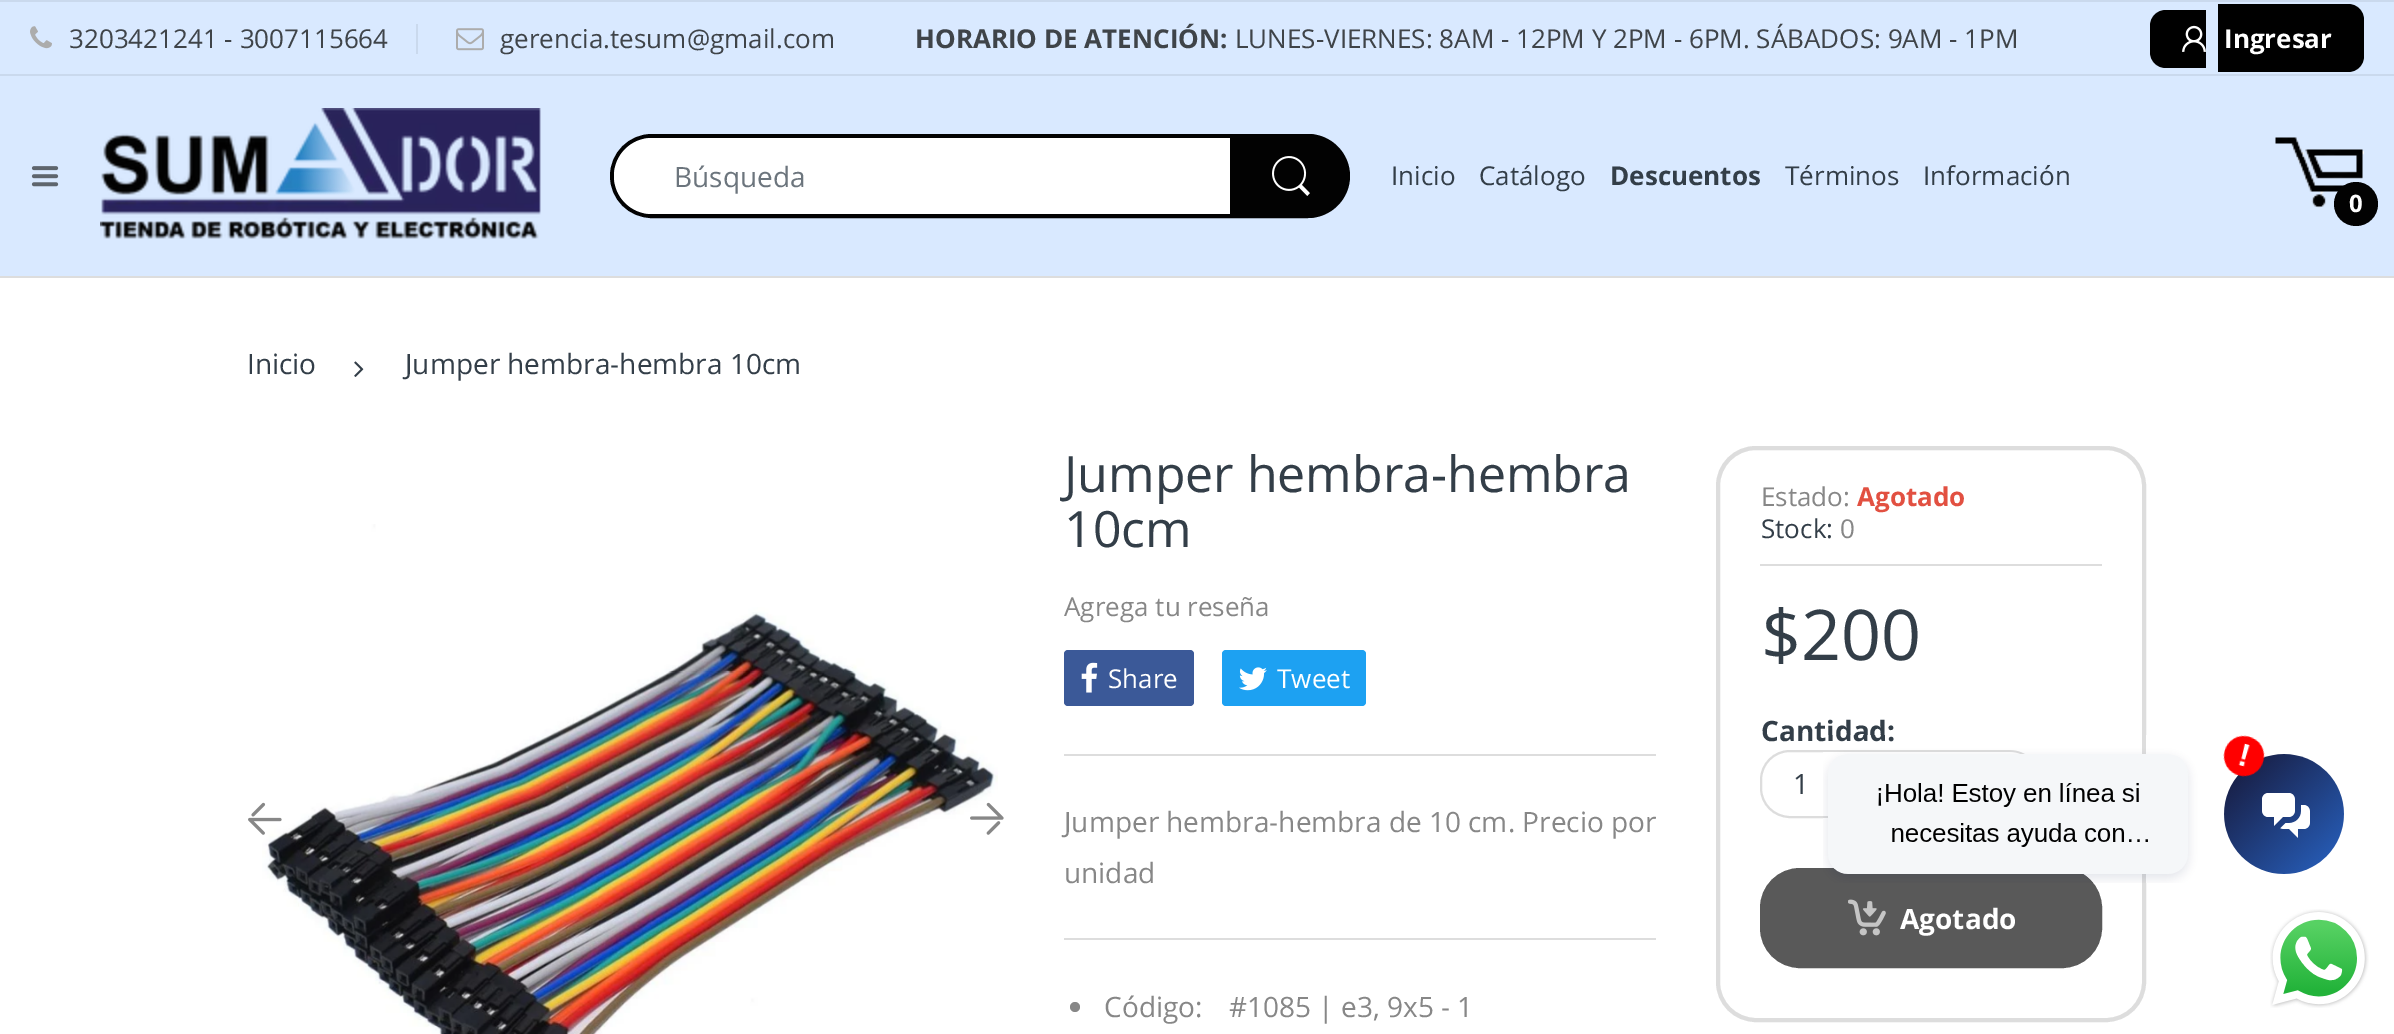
%!PS
<< /PageSize [2394 1034] >> setpagedevice
/mt/moveto load def
/li/lineto load def
/ct/curveto load def
/cp/closepath load def
/fl/fill load def
/st/stroke load def
/gs/gsave load def
/gr/grestore load def
/lw/setlinewidth load def
/co { dup -16 bitshift 255 div exch dup -8 bitshift 255 and 255 div exch 255 and 255 div setrgbcolor } def
/fn { [ exch dup neg 0 0 3 -1 roll 0 0 ] selectfont } def
/tx { co fn moveto show } def
/bx { co rectfill } def
/ci { newpath 0 360 arc closepath } def
/rr { 5 dict begin { /r /h /w /y /x } { exch def } forall
  x r add y moveto x w add y 2 copy h add r arct x w add y h add x 1 index r arct
  x y h add x y r arct x y 2 copy exch w add exch r arct closepath end } def
/im { 5 dict begin { /h /w /y /x /name } { exch def } forall
  gsave x y translate w h scale
  w h 8 [w 0 0 h 0 0] name (r) file false 3 colorimage grestore end } def
0 1034 translate 1 -1 scale
4 setmiterlimit
0 0 2394 1034 16#FFFFFF bx
0 2 2394 274 16#D9E9FF bx
0 276 2394 2 16#DDDDDD bx
0 0 2394 2 16#CAD9ED bx
0 74 2394 2 16#CAD9ED bx
(media/1.raw) 30 26 22 23 im
416 24 2 30 16#CAD9ED bx
(media/2.raw) 456 28 28 23 im
16#000000 co
2166 10 mt 2206 10 li 2206 68 li 2166 68 li 2157 68 2150 61 2150 52 ct 2150 26 li 2150 17 2157 10 2166 10 ct cp fl
2218 4 mt 2348 4 li 2357 4 2364 11 2364 20 ct 2364 56 li 2364 65 2357 72 2348 72 ct 2218 72 li cp fl
(media/3.raw) 2182 25 24 27 im
(media/4.raw) 31 166 28 21 im
(media/5.raw) 100 108 441 131 im
16#020202 co
4 lw
612 136 734 80 40 rr st
16#FFFFFF co
614 138 730 76 38 rr fl
16#020202 co
1230 134 mt 1308 134 li 1331 134 1350 153 1350 176 ct 1350 199 1331 218 1308 218 ct 1230 218 li cp fl
(media/6.raw) 1272 156 38 40 im
(media/7.raw) 2275 137 89 71 im
2356 204 22 ci fl
(media/8.raw) 354 361 10 16 im
(media/9.raw) 262 524 736 510 im
(media/10.raw) 248 802 34 33 im
(media/11.raw) 970 802 34 33 im
1064 754 592 2 16#DDDDDD bx
16#3B5998 co
1064 650 130 56 4 rr fl
(media/12.raw) 1081 662 17 31 im
16#1DA1F2 co
1222 650 144 56 4 rr fl
(media/13.raw) 1239 667 28 24 im
1064 938 592 2 16#DDDDDD bx
16#878787 co
1075 1007 5 ci fl
16#DDDDDD co
1718 448 426 572 38 rr st
1760 564 342 2 16#DDDDDD bx
2 lw
1761 751 278 66 29 rr st
16#595959 co
1761 869 340 98 39 rr gs fl gr
st
(media/14.raw) 1848 899 38 37 im
(media/16.raw) 2270 909 99 99 im
(3203421241 - 3007115664) 69 48 /OpenSans-Regular 26 16#3F4449 tx
(gerencia.tesum@gmail.com) 500 48 /OpenSans-Regular 26 16#3F4449 tx
(HORARIO DE ATENCIÓN:) 915 48 /OpenSans-Bold 26 16#3F4449 tx
(LUNES-VIERNES: 8AM - 12PM Y 2PM - 6PM. SÁBADOS: 9AM - 1PM) 1235 48 /OpenSans-Regular 26 16#3F4449 tx
(Ingresar) 2224 48 /OpenSans-Bold 26 16#FFFFFF tx
(Búsqueda) 674 187 /OpenSans-Regular 28 16#6C757D tx
(Inicio) 1391 185 /OpenSans-Regular 26 16#333E48 tx
(Catálogo) 1479 185 /OpenSans-Regular 26 16#333E48 tx
(Descuentos) 1610 185 /OpenSans-Bold 26 16#333E48 tx
(Términos) 1785 185 /OpenSans-Regular 26 16#333E48 tx
(Información) 1923 185 /OpenSans-Regular 26 16#333E48 tx
(0) 2349 212 /OpenSans-Bold 24 16#FFFFFF tx
(Inicio) 247 374 /OpenSans-Regular 28 16#333E48 tx
(Jumper hembra-hembra 10cm) 405 374 /OpenSans-Regular 28 16#333E48 tx
(Jumper hembra-hembra) 1064 492 /OpenSans-Regular 50 16#333E48 tx
(10cm) 1064 547 /OpenSans-Regular 50 16#333E48 tx
(Agrega tu reseña) 1064 616 /OpenSans-Regular 26 16#878787 tx
(Share) 1108 688 /OpenSans-Regular 26 16#FFFFFF tx
(Tweet) 1277 688 /OpenSans-Regular 26 16#FFFFFF tx
(Jumper hembra-hembra de 10 cm. Precio por) 1064 832 /OpenSans-Regular 28 16#878787 tx
(unidad) 1064 883 /OpenSans-Regular 28 16#878787 tx
(Código:) 1104 1017 /OpenSans-Regular 28 16#878787 tx
(#1085 | e3, 9x5 - 1) 1229 1017 /OpenSans-Regular 28 16#878787 tx
(Estado:) 1761 506 /OpenSans-Regular 26 16#878787 tx
(Agotado) 1857 506 /OpenSans-Bold 26 16#E25041 tx
(Stock:) 1761 538 /OpenSans-Regular 26 16#333E48 tx
(0) 1840 538 /OpenSans-Regular 26 16#878787 tx
($200) 1761 660 /OpenSans-Regular 70 16#333E48 tx
(Cantidad:) 1761 741 /OpenSans-Bold 28 16#333E48 tx
(1) 1793 794 /OpenSans-Regular 28 16#333E48 tx
(Agotado) 1900 929 /OpenSans-Bold 28 16#FFFFFF tx
(media/15.raw) 1823 735 521 148 im
showpage
